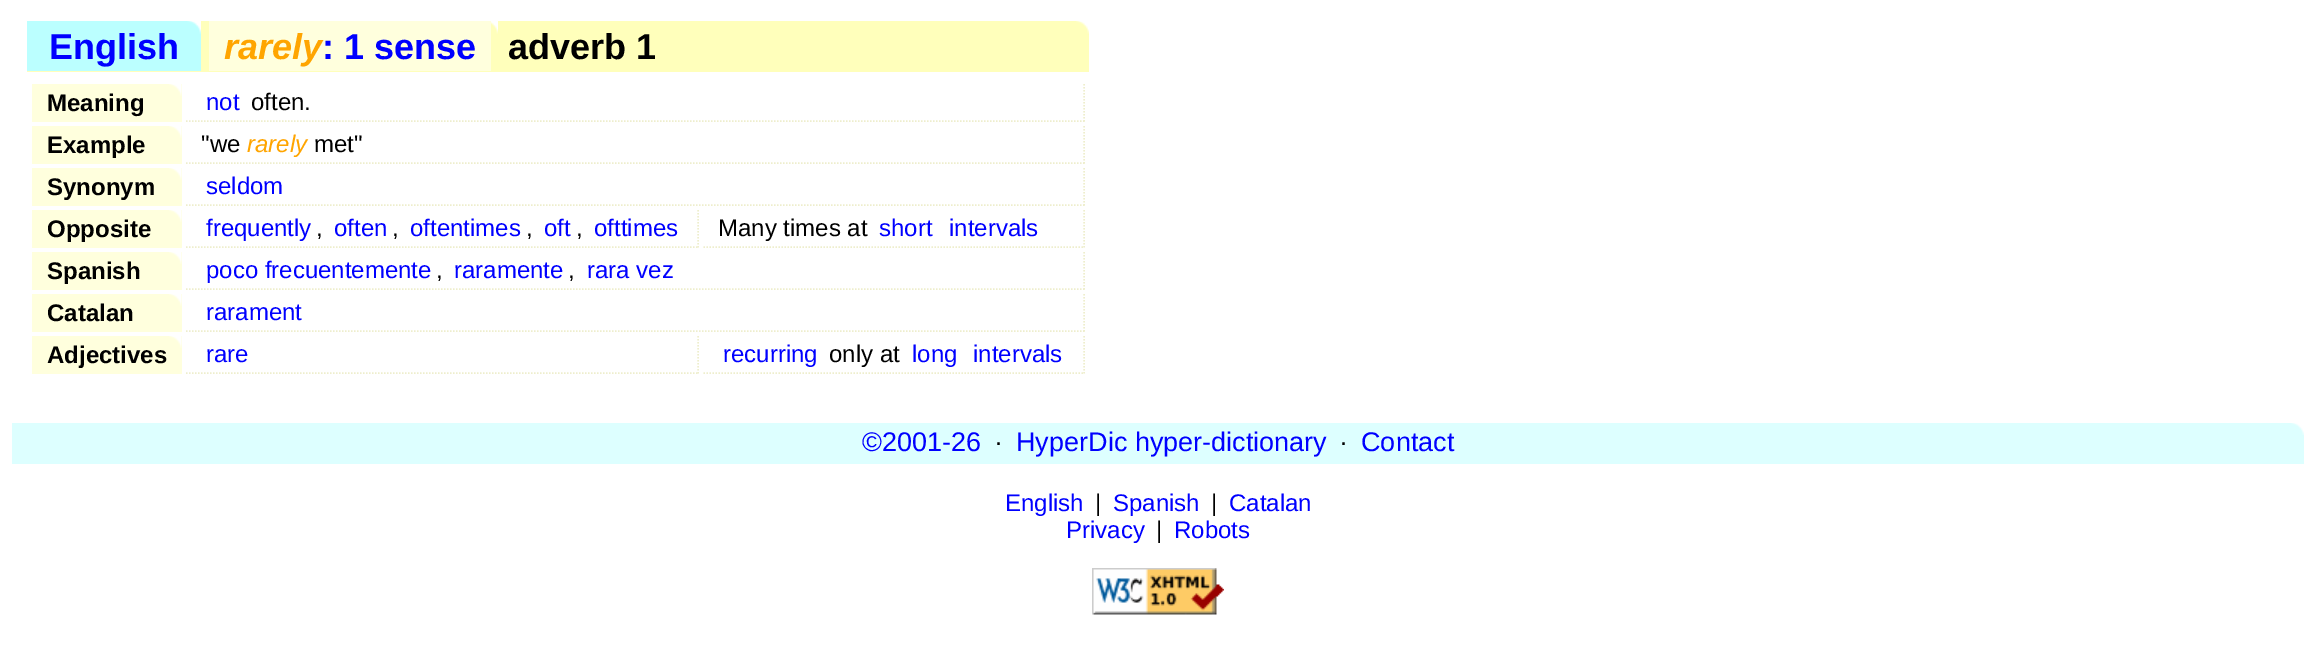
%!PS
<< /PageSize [2315 645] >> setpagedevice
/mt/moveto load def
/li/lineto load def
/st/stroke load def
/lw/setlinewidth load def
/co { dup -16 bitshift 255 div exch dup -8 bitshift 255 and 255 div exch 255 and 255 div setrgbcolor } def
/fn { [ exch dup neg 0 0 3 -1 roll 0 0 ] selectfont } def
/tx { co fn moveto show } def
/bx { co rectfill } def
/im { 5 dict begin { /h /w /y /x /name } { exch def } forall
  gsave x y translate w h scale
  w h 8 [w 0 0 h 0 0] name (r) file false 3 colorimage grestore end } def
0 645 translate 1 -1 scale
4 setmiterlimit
0 0 2315 645 16#FFFFFF bx
27 21 1062 51 16#FFFFBB bx
(media/1.raw) 1076 21 13 13 im
27 21 174 50 16#BBFFFF bx
(media/2.raw) 187 21 14 13 im
(media/3.raw) 491 21 7 13 im
209 21 282 50 16#FFFFDD bx
32 84 150 38 16#FFFFDD bx
(media/4.raw) 169 84 13 12 im
16#EEEECC co
1.5 lw
[1.5 1.5] 0 setdash
1084 84 mt 1084 121.5 li st
186 121 mt 1084.5 121 li st
32 126 150 38 16#FFFFDD bx
(media/4.raw) 169 126 13 12 im
16#EEEECC co
1084 126 mt 1084 163.5 li st
186 163 mt 1084.5 163 li st
32 168 150 38 16#FFFFDD bx
(media/4.raw) 169 168 13 12 im
16#EEEECC co
1084 168 mt 1084 205.5 li st
186 205 mt 1084.5 205 li st
32 210 150 38 16#FFFFDD bx
(media/4.raw) 169 210 13 12 im
16#EEEECC co
698 210 mt 698 247.5 li st
186 247 mt 699 247 li st
1084 210 mt 1084 247.5 li st
703.5 247 mt 1084.5 247 li st
32 252 150 38 16#FFFFDD bx
(media/4.raw) 169 252 13 12 im
16#EEEECC co
1084 252 mt 1084 289.5 li st
186 289 mt 1084.5 289 li st
32 294 150 38 16#FFFFDD bx
(media/4.raw) 169 294 13 12 im
16#EEEECC co
1084 294 mt 1084 331.5 li st
186 331 mt 1084.5 331 li st
32 336 150 38 16#FFFFDD bx
(media/4.raw) 169 336 13 12 im
16#EEEECC co
698 336 mt 698 373.5 li st
186 373 mt 699 373 li st
1084 336 mt 1084 373.5 li st
703.5 373 mt 1084.5 373 li st
12 423 2292 41 16#DDFFFF bx
(media/5.raw) 2291 423 13 12 im
(media/6.raw) 1092 568 132 47 im
(English) 49 59 /LiberationSans-Bold 36 16#0000FF tx
(rarely) 224 59 /LiberationSans-BoldItalic 36 16#FFA500 tx
(: 1 sense) 322 59 /LiberationSans-Bold 36 16#0000FF tx
(adverb 1) 508 59 /LiberationSans-Bold 36 16#000000 tx
(Meaning) 47 111 /LiberationSans-Bold 24 16#000000 tx
(not) 206 110 /LiberationSans-Regular 24 16#0000FF tx
(often.) 251 110 /LiberationSans-Regular 24 16#000000 tx
(Example) 47 153 /LiberationSans-Bold 24 16#000000 tx
("we) 201 152 /LiberationSans-Regular 24 16#000000 tx
(rarely) 247 152 /LiberationSans-Italic 24 16#FFA500 tx
(met") 314 152 /LiberationSans-Regular 24 16#000000 tx
(Synonym) 47 195 /LiberationSans-Bold 24 16#000000 tx
(seldom) 206 194 /LiberationSans-Regular 24 16#0000FF tx
(Opposite) 47 237 /LiberationSans-Bold 24 16#000000 tx
(frequently) 206 236 /LiberationSans-Regular 24 16#0000FF tx
(,) 316 236 /LiberationSans-Regular 24 16#000000 tx
(often) 334 236 /LiberationSans-Regular 24 16#0000FF tx
(,) 392 236 /LiberationSans-Regular 24 16#000000 tx
(oftentimes) 410 236 /LiberationSans-Regular 24 16#0000FF tx
(,) 526 236 /LiberationSans-Regular 24 16#000000 tx
(oft) 544 236 /LiberationSans-Regular 24 16#0000FF tx
(,) 576 236 /LiberationSans-Regular 24 16#000000 tx
(ofttimes) 594 236 /LiberationSans-Regular 24 16#0000FF tx
(Many times at) 718 236 /LiberationSans-Regular 24 16#000000 tx
(short) 879 236 /LiberationSans-Regular 24 16#0000FF tx
(intervals) 949 236 /LiberationSans-Regular 24 16#0000FF tx
(Spanish) 47 279 /LiberationSans-Bold 24 16#000000 tx
(poco frecuentemente) 206 278 /LiberationSans-Regular 24 16#0000FF tx
(,) 436 278 /LiberationSans-Regular 24 16#000000 tx
(raramente) 454 278 /LiberationSans-Regular 24 16#0000FF tx
(,) 568 278 /LiberationSans-Regular 24 16#000000 tx
(rara vez) 587 278 /LiberationSans-Regular 24 16#0000FF tx
(Catalan) 47 321 /LiberationSans-Bold 24 16#000000 tx
(rarament) 206 320 /LiberationSans-Regular 24 16#0000FF tx
(Adjectives) 47 363 /LiberationSans-Bold 24 16#000000 tx
(rare) 206 362 /LiberationSans-Regular 24 16#0000FF tx
(recurring) 723 362 /LiberationSans-Regular 24 16#0000FF tx
(only at) 829 362 /LiberationSans-Regular 24 16#000000 tx
(long) 912 362 /LiberationSans-Regular 24 16#0000FF tx
(intervals) 973 362 /LiberationSans-Regular 24 16#0000FF tx
(©2001-26) 862 451 /LiberationSans-Regular 27 16#0000FF tx
(·) 994 451 /LiberationSans-Regular 27 16#000000 tx
(HyperDic hyper-dictionary) 1016 451 /LiberationSans-Regular 27 16#0000FF tx
(·) 1339 451 /LiberationSans-Regular 27 16#000000 tx
(Contact) 1361 451 /LiberationSans-Regular 27 16#0000FF tx
(English) 1005 511 /LiberationSans-Regular 24 16#0000FF tx
(|) 1095 511 /LiberationSans-Regular 24 16#000000 tx
(Spanish) 1113 511 /LiberationSans-Regular 24 16#0000FF tx
(|) 1211 511 /LiberationSans-Regular 24 16#000000 tx
(Catalan) 1229 511 /LiberationSans-Regular 24 16#0000FF tx
(Privacy) 1066 538 /LiberationSans-Regular 24 16#0000FF tx
(|) 1156 538 /LiberationSans-Regular 24 16#000000 tx
(Robots) 1174 538 /LiberationSans-Regular 24 16#0000FF tx
showpage
